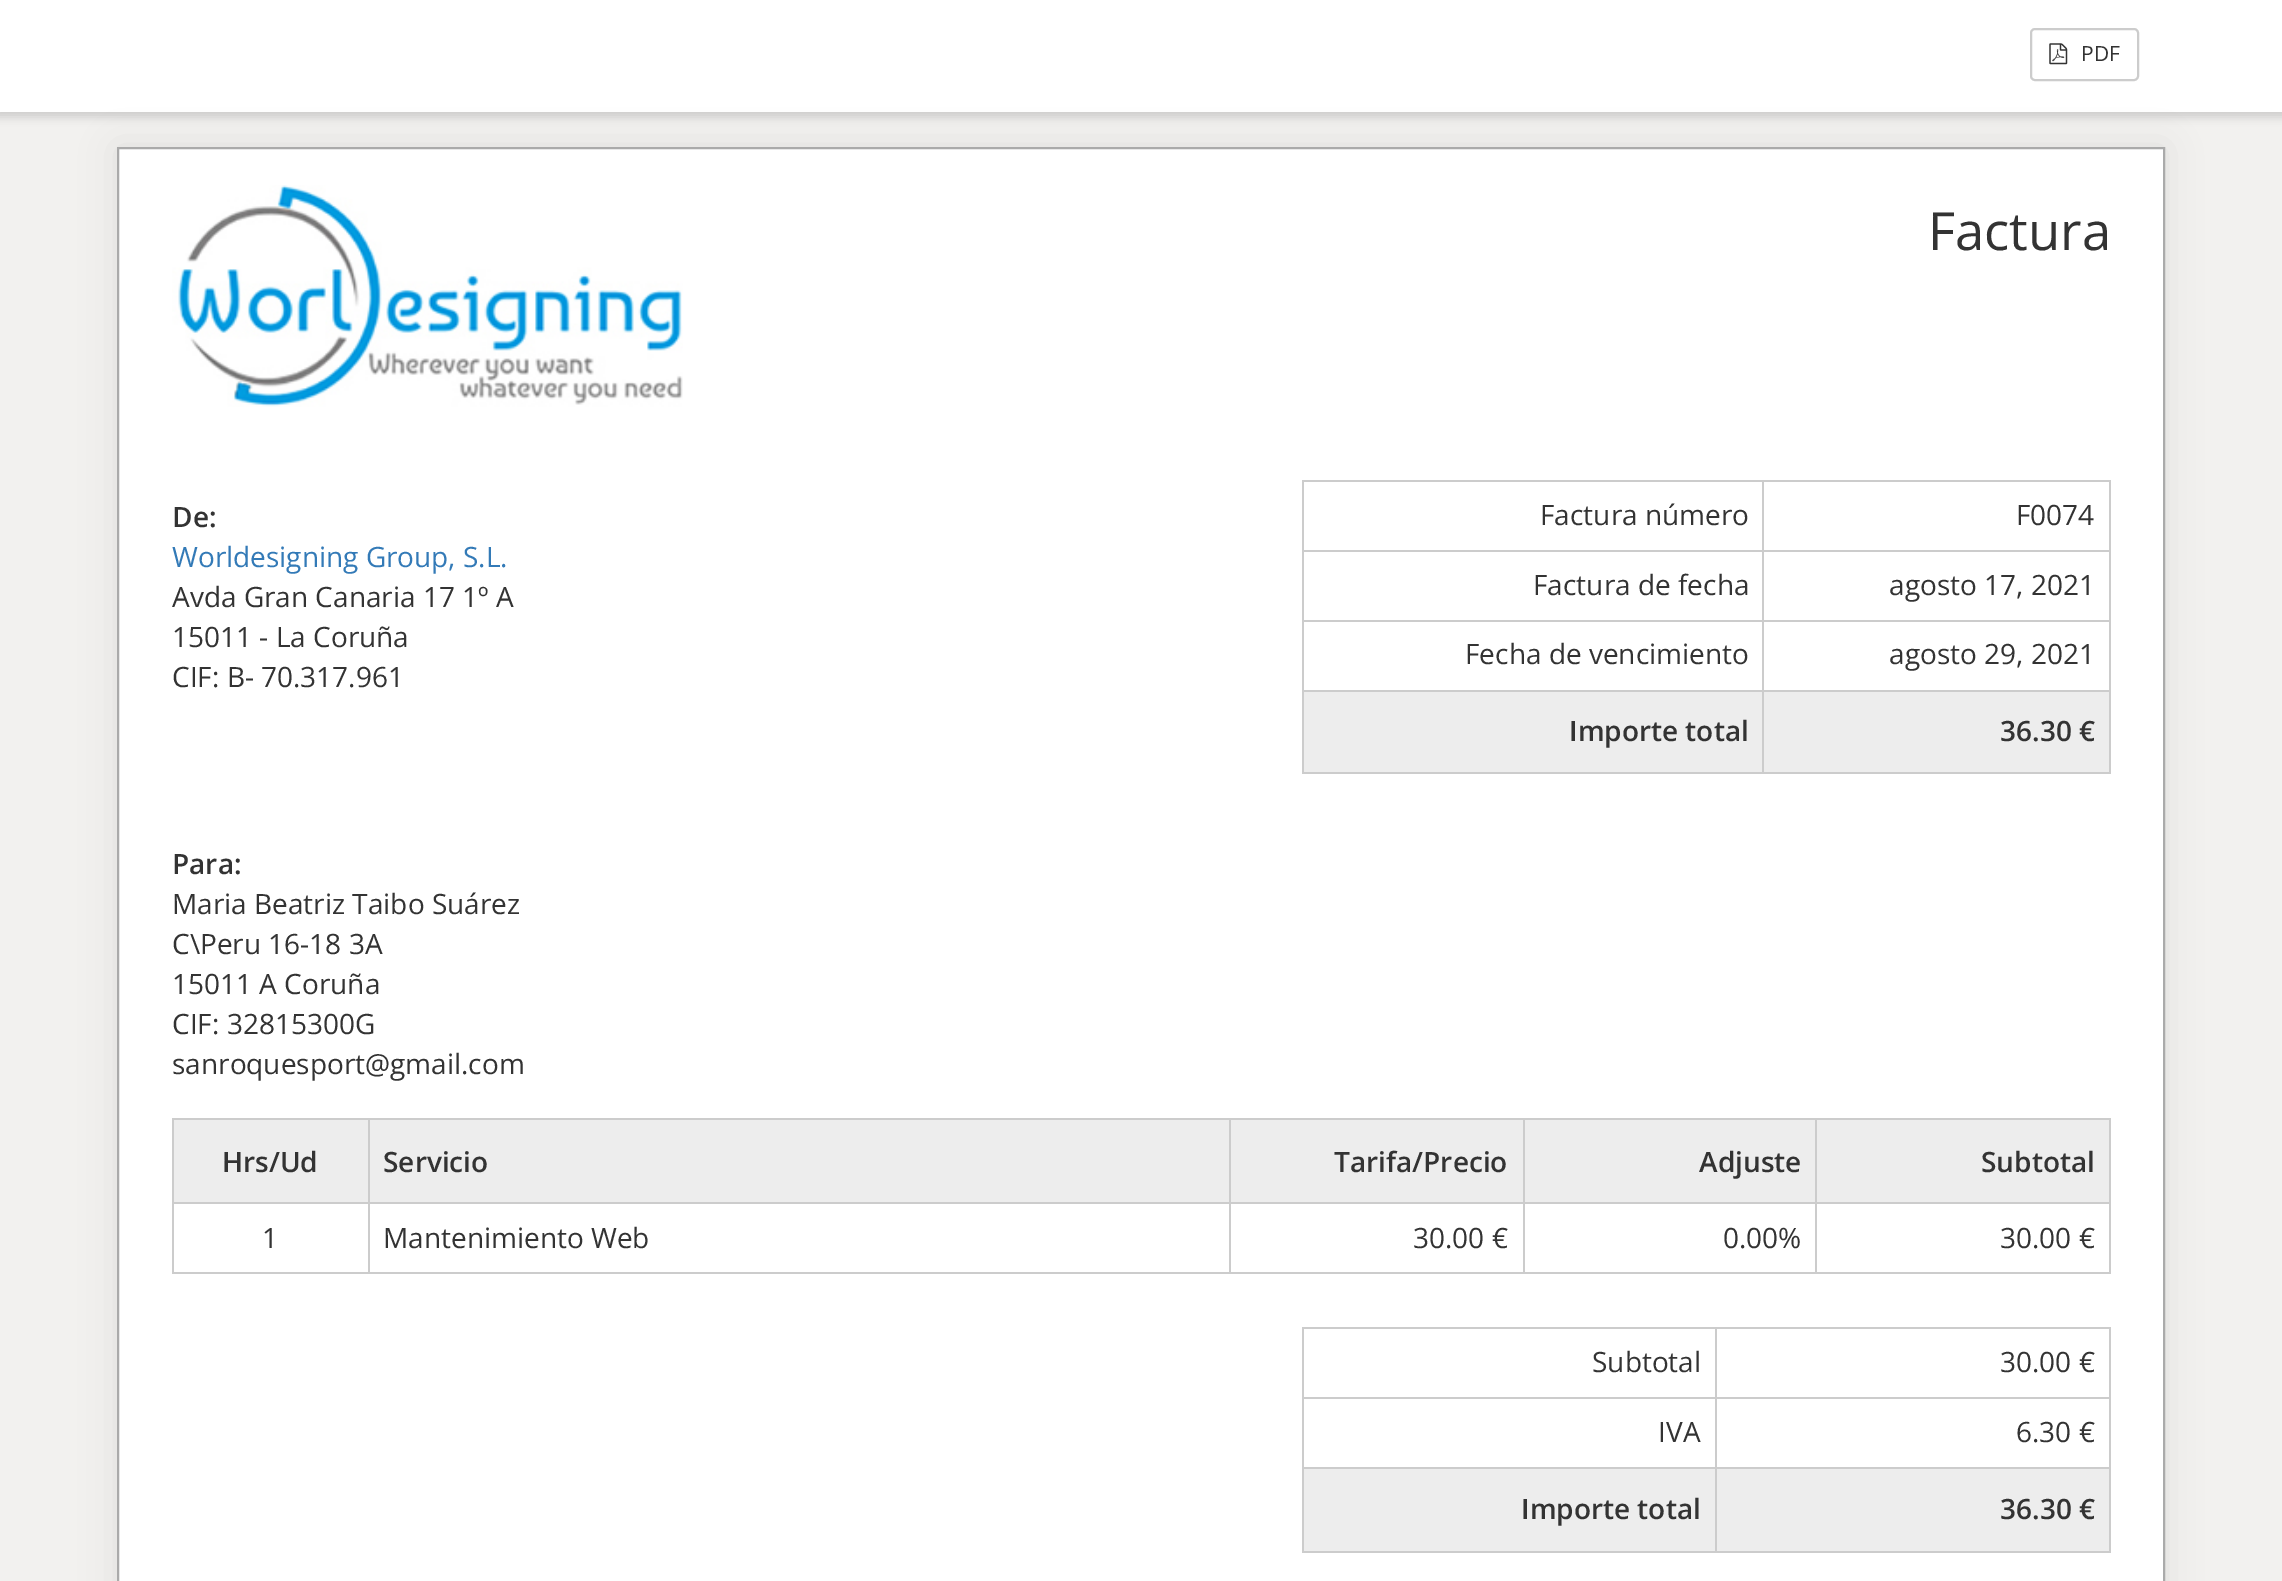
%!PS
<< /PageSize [2282 1581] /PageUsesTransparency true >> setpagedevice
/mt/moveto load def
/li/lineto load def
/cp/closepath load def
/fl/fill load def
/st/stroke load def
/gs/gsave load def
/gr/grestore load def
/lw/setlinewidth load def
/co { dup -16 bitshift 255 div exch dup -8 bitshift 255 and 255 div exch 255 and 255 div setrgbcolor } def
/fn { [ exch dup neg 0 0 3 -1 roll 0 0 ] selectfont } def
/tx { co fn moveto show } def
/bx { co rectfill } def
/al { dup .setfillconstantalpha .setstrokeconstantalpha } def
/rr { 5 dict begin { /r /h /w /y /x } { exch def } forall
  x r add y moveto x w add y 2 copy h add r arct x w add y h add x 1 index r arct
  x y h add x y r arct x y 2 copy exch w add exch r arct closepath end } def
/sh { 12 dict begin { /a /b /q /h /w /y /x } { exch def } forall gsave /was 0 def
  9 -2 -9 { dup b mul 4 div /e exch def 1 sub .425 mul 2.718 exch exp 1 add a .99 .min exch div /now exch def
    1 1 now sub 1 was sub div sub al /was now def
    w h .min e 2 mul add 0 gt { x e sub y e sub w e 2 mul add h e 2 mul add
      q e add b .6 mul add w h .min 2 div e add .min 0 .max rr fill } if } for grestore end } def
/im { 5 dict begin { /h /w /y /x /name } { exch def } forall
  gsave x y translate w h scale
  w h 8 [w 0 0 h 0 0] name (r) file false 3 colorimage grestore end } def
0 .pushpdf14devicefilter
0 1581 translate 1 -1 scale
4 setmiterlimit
0 0 2282 1581 16#F2F1EF bx
16#000000 co
-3 -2 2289 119 0 4.5 .15 sh
0 0 2282 112 16#FFFFFF bx
16#CCCCCC co
2 lw
2031 29 107 51 4 rr st
(media/1.raw) 2049 43 19 22 im
16#000000 co
117 147 2048 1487 0 17.5 .07 sh
16#FFFFFF co
118 148 mt 2164 148 li 2164 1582 li 118 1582 li cp gs fl gr
16#AAAAAA co
st
(media/2.raw) 172 185 511 222 im
1302 480 809 2 16#CCCCCC bx
2109 480 2 294 16#CCCCCC bx
1302 772 809 2 16#CCCCCC bx
1302 480 2 294 16#CCCCCC bx
1762 550 349 2 16#CCCCCC bx
1762 620 349 2 16#CCCCCC bx
1762 690 349 2 16#CCCCCC bx
1762 690 2 84 16#CCCCCC bx
1302 690 462 2 16#CCCCCC bx
1762 620 2 71 16#CCCCCC bx
1302 620 462 2 16#CCCCCC bx
1762 550 2 71 16#CCCCCC bx
1302 550 462 2 16#CCCCCC bx
1762 480 2 71 16#CCCCCC bx
1304 692 458 80 16#EDEDED bx
1764 692 345 80 16#EDEDED bx
172 1118 1939 2 16#CCCCCC bx
2109 1118 2 156 16#CCCCCC bx
172 1272 1939 2 16#CCCCCC bx
172 1118 2 156 16#CCCCCC bx
174 1120 194 82 16#EDEDED bx
370 1120 859 82 16#EDEDED bx
1815 1202 296 2 16#CCCCCC bx
1815 1202 2 72 16#CCCCCC bx
1523 1202 294 2 16#CCCCCC bx
1523 1202 2 72 16#CCCCCC bx
1229 1202 295 2 16#CCCCCC bx
1229 1202 2 72 16#CCCCCC bx
368 1202 862 2 16#CCCCCC bx
368 1202 2 72 16#CCCCCC bx
172 1202 197 2 16#CCCCCC bx
368 1118 2 86 16#CCCCCC bx
1231 1120 292 82 16#EDEDED bx
1229 1118 2 86 16#CCCCCC bx
1525 1120 290 82 16#EDEDED bx
1523 1118 2 86 16#CCCCCC bx
1817 1120 292 82 16#EDEDED bx
1815 1118 2 86 16#CCCCCC bx
1302 1327 809 2 16#CCCCCC bx
2109 1327 2 225 16#CCCCCC bx
1302 1551 809 2 16#CCCCCC bx
1302 1327 2 225 16#CCCCCC bx
1715 1397 396 2 16#CCCCCC bx
1715 1467 396 2 16#CCCCCC bx
1715 1467 2 85 16#CCCCCC bx
1302 1467 415 2 16#CCCCCC bx
1715 1397 2 71 16#CCCCCC bx
1302 1397 415 2 16#CCCCCC bx
1715 1327 2 71 16#CCCCCC bx
1304 1469 411 82 16#EDEDED bx
1717 1469 392 82 16#EDEDED bx
(PDF) 2081 61 /OpenSans-Regular 21 16#333333 tx
(Factura) 1928 250 /OpenSans-Regular 52.5 16#333333 tx
(De:) 172 527 /OpenSans-SemiBold 28 16#333333 tx
(Worldesigning Group, S.L.) 172 567 /OpenSans-Regular 28 16#337AB7 tx
(Avda Gran Canaria 17 1º A) 172 607 /OpenSans-Regular 28 16#333333 tx
(15011 - La Coruña) 172 647 /OpenSans-Regular 28 16#333333 tx
(CIF: B- 70.317.961) 172 687 /OpenSans-Regular 28 16#333333 tx
(Factura número) 1540 525 /OpenSans-Regular 28 16#333333 tx
(F0074) 2016 525 /OpenSans-Regular 28 16#333333 tx
(Factura de fecha) 1533 595 /OpenSans-Regular 28 16#333333 tx
(agosto 17, 2021) 1889 595 /OpenSans-Regular 28 16#333333 tx
(Fecha de vencimiento) 1465 664 /OpenSans-Regular 28 16#333333 tx
(agosto 29, 2021) 1889 664 /OpenSans-Regular 28 16#333333 tx
(Importe total) 1569 741 /OpenSans-SemiBold 28 16#333333 tx
(36.30 €) 2000 741 /OpenSans-SemiBold 28 16#333333 tx
(Para:) 172 874 /OpenSans-SemiBold 28 16#333333 tx
(Maria Beatriz Taibo Suárez) 172 914 /OpenSans-Regular 28 16#333333 tx
(C\\Peru 16-18 3A) 172 954 /OpenSans-Regular 28 16#333333 tx
(15011 A Coruña) 172 994 /OpenSans-Regular 28 16#333333 tx
(CIF: 32815300G) 172 1034 /OpenSans-Regular 28 16#333333 tx
(sanroquesport@gmail.com) 172 1074 /OpenSans-Regular 28 16#333333 tx
(Hrs/Ud) 222 1172 /OpenSans-SemiBold 28 16#333333 tx
(Servicio) 383 1172 /OpenSans-SemiBold 28 16#333333 tx
(Tarifa/Precio) 1334 1172 /OpenSans-SemiBold 28 16#333333 tx
(Adjuste) 1699 1172 /OpenSans-SemiBold 28 16#333333 tx
(Subtotal) 1981 1172 /OpenSans-SemiBold 28 16#333333 tx
(1) 262 1248 /OpenSans-Regular 28 16#333333 tx
(Mantenimiento Web) 383 1248 /OpenSans-Regular 28 16#333333 tx
(30.00 €) 1413 1248 /OpenSans-Regular 28 16#333333 tx
(0.00%) 1723 1248 /OpenSans-Regular 28 16#333333 tx
(30.00 €) 2000 1248 /OpenSans-Regular 28 16#333333 tx
(Subtotal) 1592 1372 /OpenSans-Regular 28 16#333333 tx
(30.00 €) 2000 1372 /OpenSans-Regular 28 16#333333 tx
(IVA) 1658 1442 /OpenSans-Regular 28 16#333333 tx
(6.30 €) 2016 1442 /OpenSans-Regular 28 16#333333 tx
(Importe total) 1521 1519 /OpenSans-SemiBold 28 16#333333 tx
(36.30 €) 2000 1519 /OpenSans-SemiBold 28 16#333333 tx
.poppdf14devicefilter showpage
